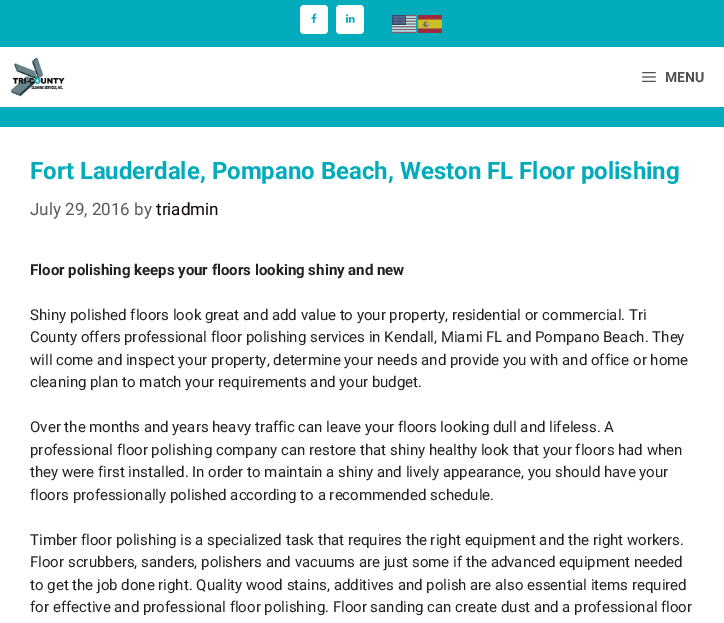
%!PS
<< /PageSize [724 623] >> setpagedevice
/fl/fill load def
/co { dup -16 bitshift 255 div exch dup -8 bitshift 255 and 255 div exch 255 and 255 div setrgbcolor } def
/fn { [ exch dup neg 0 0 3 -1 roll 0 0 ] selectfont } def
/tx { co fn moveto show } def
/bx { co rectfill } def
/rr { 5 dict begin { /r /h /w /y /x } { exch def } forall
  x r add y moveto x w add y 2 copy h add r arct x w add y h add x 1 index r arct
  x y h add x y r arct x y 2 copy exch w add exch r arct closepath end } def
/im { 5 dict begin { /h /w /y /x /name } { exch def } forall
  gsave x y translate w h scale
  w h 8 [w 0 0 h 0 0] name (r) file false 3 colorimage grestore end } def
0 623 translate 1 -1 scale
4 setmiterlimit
0 0 724 623 16#00ABBB bx
16#FFFFFF co
300 5 28 29 4 rr fl
(media/1.raw) 311 13 6 10 im
336 5 28 29 4 rr fl
(media/2.raw) 346 14 9 9 im
(media/3.raw) 392 15 24 18 im
(media/4.raw) 418 15 24 18 im
0 47 724 60 16#FFFFFF bx
(media/5.raw) 10 57 55 40 im
(media/6.raw) 642 72 14 10 im
0 127 724 496 16#FFFFFF bx
(MENU) 665 82 /Roboto-Bold 14 16#515151 tx
(Fort Lauderdale, Pompano Beach, Weston FL Floor polishing) 30 179 /Roboto-Bold 24 16#00ABBB tx
(July 29, 2016 by) 30 215 /Roboto-Regular 17 16#595959 tx
(triadmin) 156 215 /Roboto-Regular 17 16#0A0000 tx
(Floor polishing keeps your floors looking shiny and new) 30 275 /Roboto-Bold 15 16#222222 tx
(Shiny polished floors look great and add value to your property, residential or commercial. Tri) 30 320 /Roboto-Regular 15 16#222222 tx
(County offers professional floor polishing services in Kendall, Miami FL and Pompano Beach. They) 30 342 /Roboto-Regular 15 16#222222 tx
(will come and inspect your property, determine your needs and provide you with and office or home) 30 365 /Roboto-Regular 15 16#222222 tx
(cleaning plan to match your requirements and your budget.) 30 387 /Roboto-Regular 15 16#222222 tx
(Over the months and years heavy traffic can leave your floors looking dull and lifeless. A) 30 432 /Roboto-Regular 15 16#222222 tx
(professional floor polishing company can restore that shiny healthy look that your floors had when) 30 455 /Roboto-Regular 15 16#222222 tx
(they were first installed. In order to maintain a shiny and lively appearance, you should have your) 30 477 /Roboto-Regular 15 16#222222 tx
(floors professionally polished according to a recommended schedule.) 30 500 /Roboto-Regular 15 16#222222 tx
(Timber floor polishing is a specialized task that requires the right equipment and the right workers.) 30 545 /Roboto-Regular 15 16#222222 tx
(Floor scrubbers, sanders, polishers and vacuums are just some if the advanced equipment needed) 30 567 /Roboto-Regular 15 16#222222 tx
(to get the job done right. Quality wood stains, additives and polish are also essential items required) 30 590 /Roboto-Regular 15 16#222222 tx
(for effective and professional floor polishing. Floor sanding can create dust and a professional floor) 30 612 /Roboto-Regular 15 16#222222 tx
showpage
